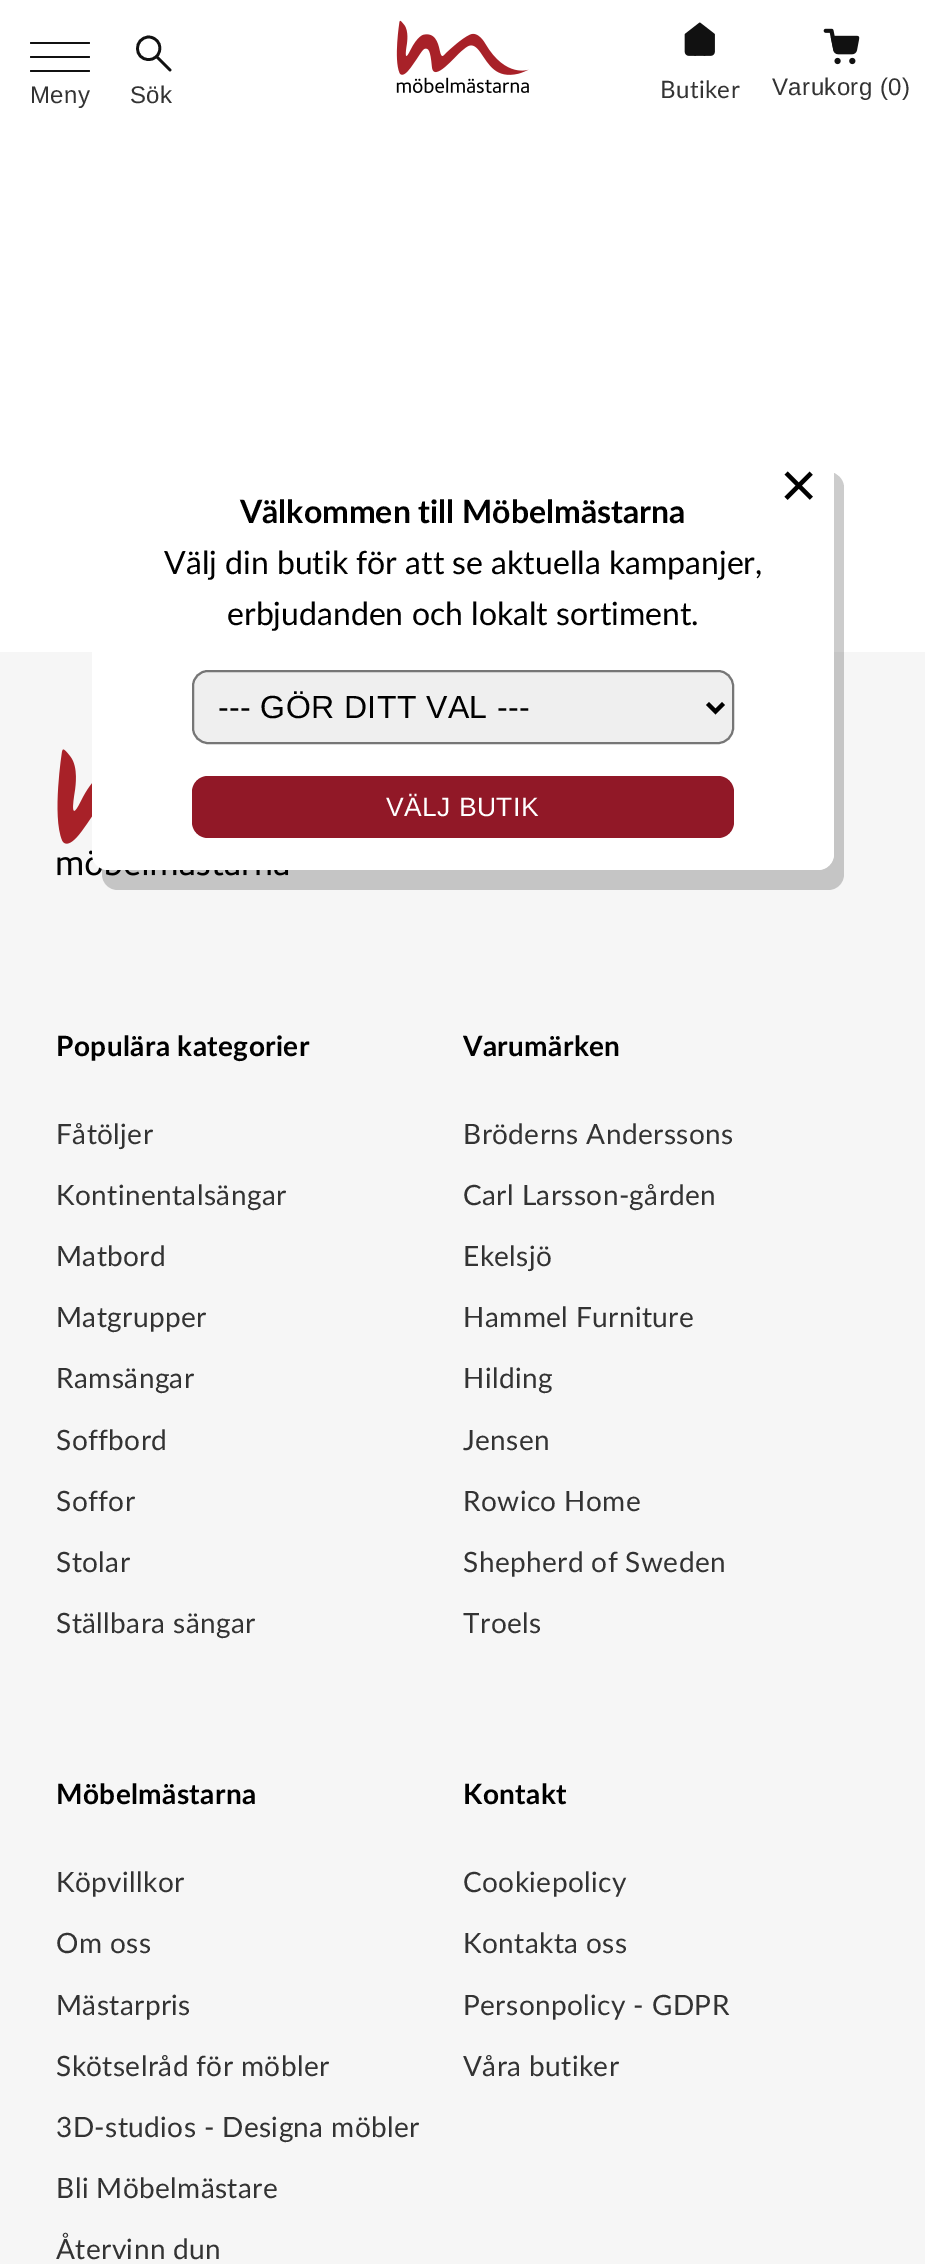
%!PS
<< /PageSize [925 2264] /PageUsesTransparency true >> setpagedevice
/mt/moveto load def
/li/lineto load def
/ct/curveto load def
/cp/closepath load def
/fl/fill load def
/st/stroke load def
/gs/gsave load def
/gr/grestore load def
/lw/setlinewidth load def
/co { dup -16 bitshift 255 div exch dup -8 bitshift 255 and 255 div exch 255 and 255 div setrgbcolor } def
/fn { [ exch dup neg 0 0 3 -1 roll 0 0 ] selectfont } def
/tx { co fn moveto show } def
/bx { co rectfill } def
/al { dup .setfillconstantalpha .setstrokeconstantalpha } def
/rr { 5 dict begin { /r /h /w /y /x } { exch def } forall
  x r add y moveto x w add y 2 copy h add r arct x w add y h add x 1 index r arct
  x y h add x y r arct x y 2 copy exch w add exch r arct closepath end } def
/im { 5 dict begin { /h /w /y /x /name } { exch def } forall
  gsave x y translate w h scale
  w h 8 [w 0 0 h 0 0] name (r) file false 3 colorimage grestore end } def
0 .pushpdf14devicefilter
0 2264 translate 1 -1 scale
4 setmiterlimit
0 0 925 2264 16#FFFFFF bx
16#111111 co
30 56 60 2 1 rr fl
30 42 60 2 1 rr fl
30 70 60 2 1 rr fl
2.7 lw
1 setlinecap
1 setlinejoin
148.5 59.5 mt 160 60 164.5 44 154 38.5 ct 152.5 37.5 150.5 37 148.5 37 ct 133.5 38 134 59.5 148.5 59.5 ct cp 170 70 mt 156.5 56.5 li st
(media/1.raw) 396 20 133 73 im
(media/2.raw) 684 22 31 34 im
(media/3.raw) 823 28 37 37 im
0 652 925 1612 16#F6F6F6 bx
(media/4.raw) 57 749 232 127 im
0.2 al
16#000000 co
102 869 mt 102 874 li 102 883 109 890 118 890 ct 828 890 li 837 890 844 883 844 874 ct 844 488 li 844 481 840 476 834 473 ct 834 854 li 834 863 827 870 818 870 ct 108 870 li 106 870 104 870 102 869 ct cp fl
1 al
16#FFFFFF co
92 452 742 418 16 rr fl
16#EFEFEF co
193 671 540 72 15 rr gs fl gr
16#767676 co
2 lw
0 setlinecap
0 setlinejoin
st
16#000000 co
4 lw
707.5 703.5 mt 715.5 711.5 li 723.5 703.5 li st
16#911827 co
192 776 542 62 16 rr fl
/LiberationSans-Regular 24 fn
16#333333 co
30 103 mt .4 0 (Meny) ashow
130 103 mt .4 0 (Sök) ashow
/Lato-Regular 24 fn
660 98 mt .4 0 (Butiker) ashow
/LiberationSans-Regular 24 fn
772 95 mt .4 0 (Varukorg \(0\)) ashow
/LiberationSans-Regular 64 fn
16#000000 co
780 507 mt .4 0 (×) ashow
(Välkommen till Möbelmästarna) 240 523 /Lato-Bold 32 16#000000 tx
(Välj din butik för att se aktuella kampanjer,) 164 574 /Lato-Regular 32 16#000000 tx
(erbjudanden och lokalt sortiment.) 227 625 /Lato-Regular 32 16#000000 tx
/LiberationSans-Regular 32 fn
218 718 mt .4 0 (--- GÖR DITT VAL ---) ashow
/LiberationSans-Regular 26.5 fn
16#FFFFFF co
386 816 mt .4 0 (VÄLJ BUTIK) ashow
/Lato-Bold 28 fn
16#000000 co
56 1056 mt .4 0 (Populära kategorier) ashow
/Lato-Regular 28 fn
16#333333 co
56 1144 mt .4 0 (Fåtöljer) ashow
56 1205 mt .4 0 (Kontinentalsängar) ashow
56 1266 mt .4 0 (Matbord) ashow
56 1327 mt .4 0 (Matgrupper) ashow
56 1388 mt .4 0 (Ramsängar) ashow
56 1450 mt .4 0 (Soffbord) ashow
56 1511 mt .4 0 (Soffor) ashow
56 1572 mt .4 0 (Stolar) ashow
56 1633 mt .4 0 (Ställbara sängar) ashow
/Lato-Bold 28 fn
16#000000 co
463 1056 mt .4 0 (Varumärken) ashow
/Lato-Regular 28 fn
16#333333 co
463 1144 mt .4 0 (Bröderns Anderssons) ashow
463 1205 mt .4 0 (Carl Larsson-gården) ashow
463 1266 mt .4 0 (Ekelsjö) ashow
463 1327 mt .4 0 (Hammel Furniture) ashow
463 1388 mt .4 0 (Hilding) ashow
463 1450 mt .4 0 (Jensen) ashow
463 1511 mt .4 0 (Rowico Home) ashow
463 1572 mt .4 0 (Shepherd of Sweden) ashow
463 1633 mt .4 0 (Troels) ashow
/Lato-Bold 28 fn
16#000000 co
56 1804 mt .4 0 (Möbelmästarna) ashow
/Lato-Regular 28 fn
16#333333 co
56 1892 mt .4 0 (Köpvillkor) ashow
56 1953 mt .4 0 (Om oss) ashow
56 2015 mt .4 0 (Mästarpris) ashow
56 2076 mt .4 0 (Skötselråd för möbler) ashow
56 2137 mt .4 0 (3D-studios - Designa möbler) ashow
56 2198 mt .4 0 (Bli Möbelmästare) ashow
56 2259 mt .4 0 (Återvinn dun) ashow
/Lato-Bold 28 fn
16#000000 co
463 1804 mt .4 0 (Kontakt) ashow
/Lato-Regular 28 fn
16#333333 co
463 1892 mt .4 0 (Cookiepolicy) ashow
463 1953 mt .4 0 (Kontakta oss) ashow
463 2015 mt .4 0 (Personpolicy - GDPR) ashow
463 2076 mt .4 0 (Våra butiker) ashow
.poppdf14devicefilter showpage
